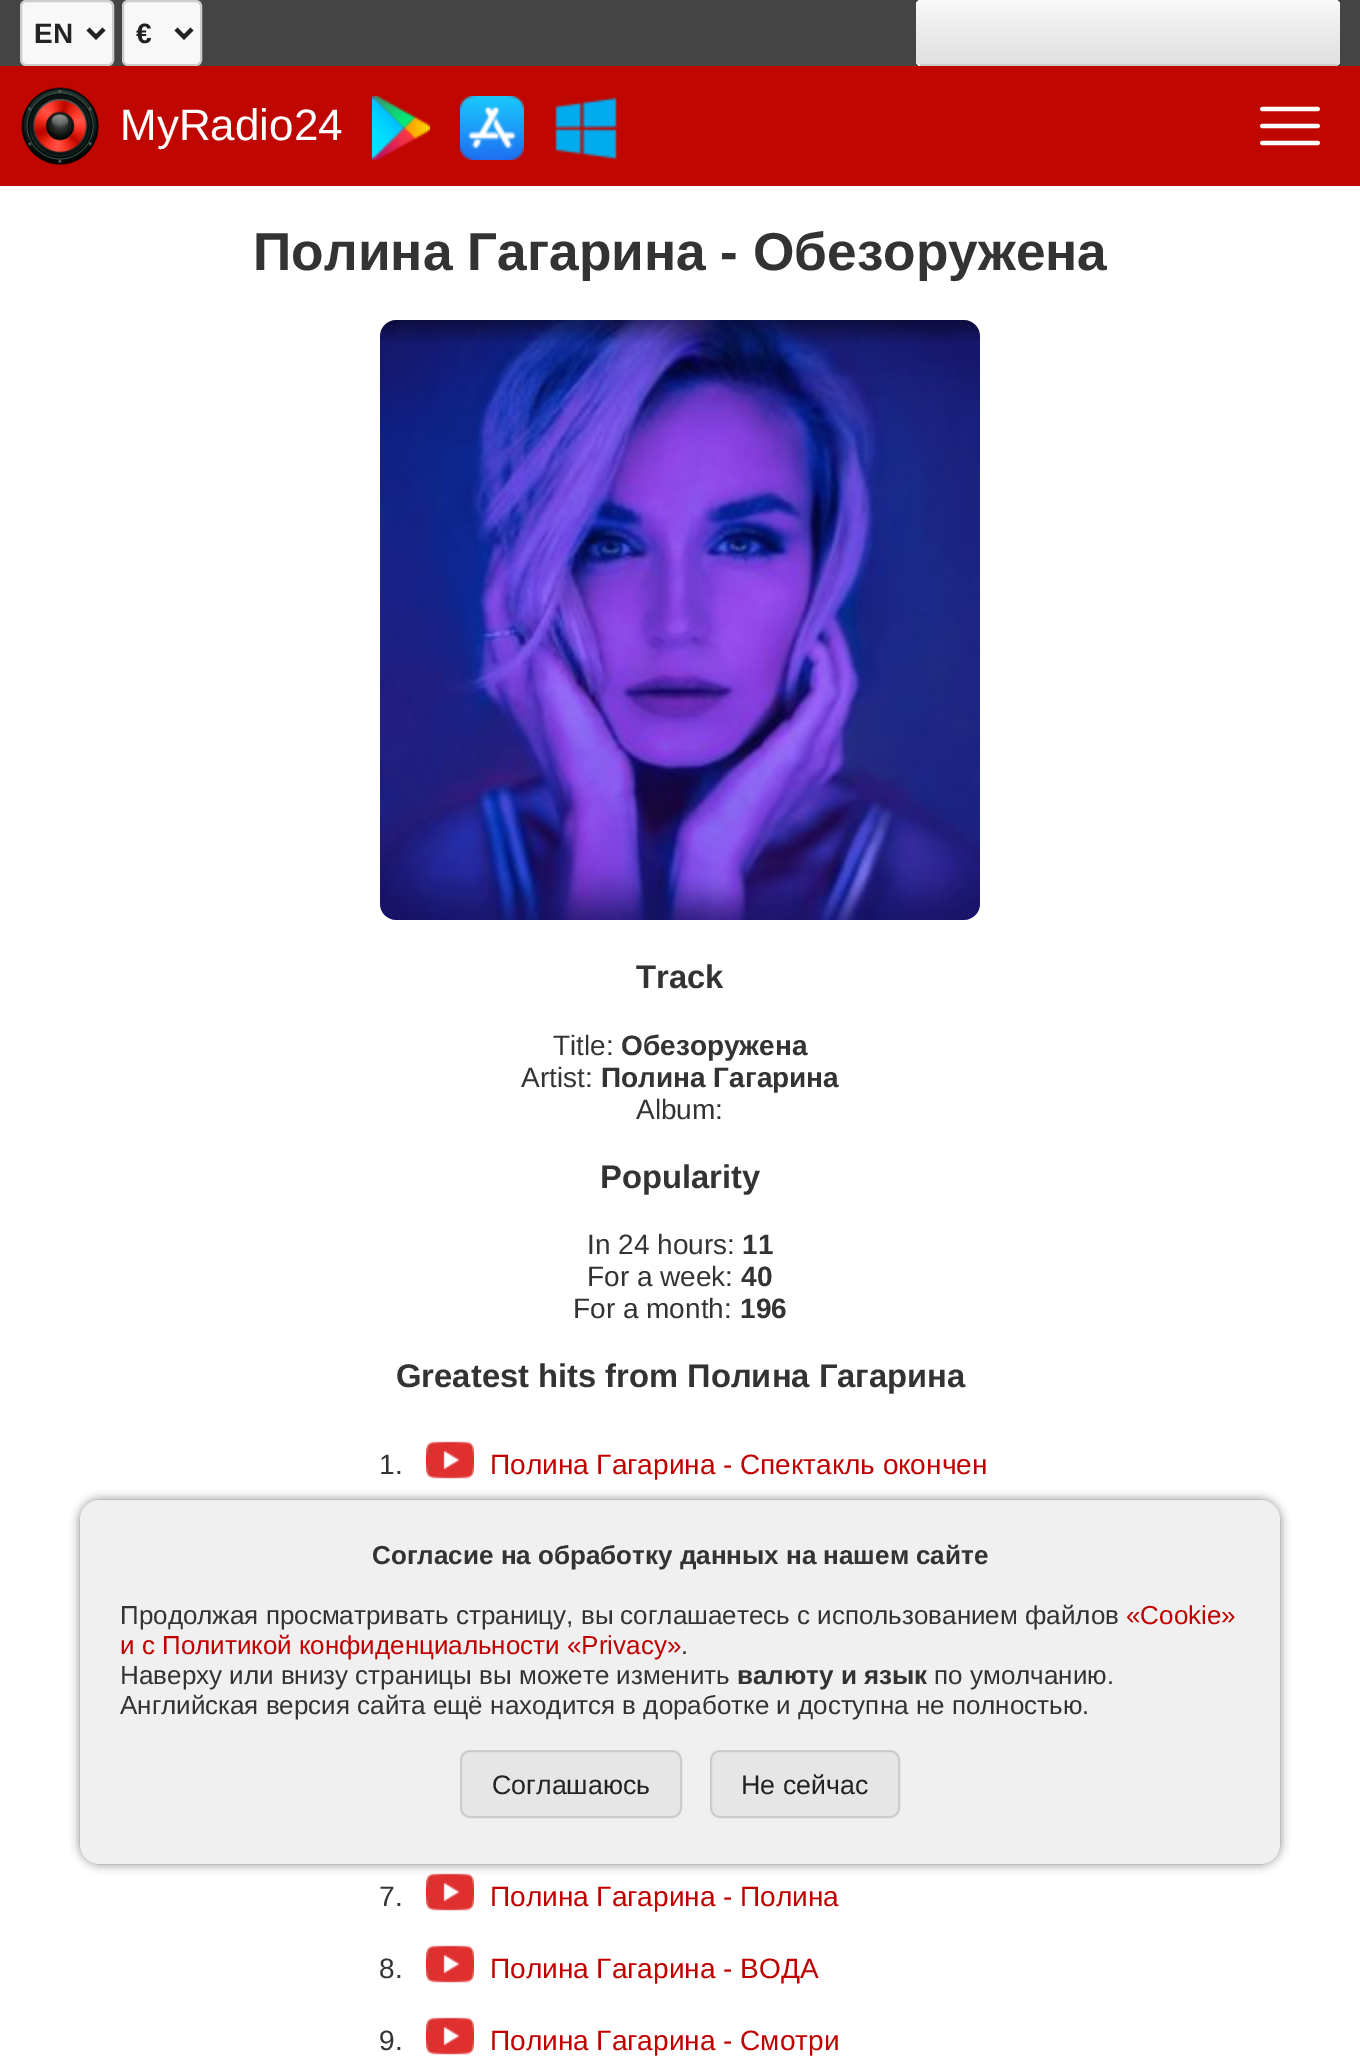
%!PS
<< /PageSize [1360 2064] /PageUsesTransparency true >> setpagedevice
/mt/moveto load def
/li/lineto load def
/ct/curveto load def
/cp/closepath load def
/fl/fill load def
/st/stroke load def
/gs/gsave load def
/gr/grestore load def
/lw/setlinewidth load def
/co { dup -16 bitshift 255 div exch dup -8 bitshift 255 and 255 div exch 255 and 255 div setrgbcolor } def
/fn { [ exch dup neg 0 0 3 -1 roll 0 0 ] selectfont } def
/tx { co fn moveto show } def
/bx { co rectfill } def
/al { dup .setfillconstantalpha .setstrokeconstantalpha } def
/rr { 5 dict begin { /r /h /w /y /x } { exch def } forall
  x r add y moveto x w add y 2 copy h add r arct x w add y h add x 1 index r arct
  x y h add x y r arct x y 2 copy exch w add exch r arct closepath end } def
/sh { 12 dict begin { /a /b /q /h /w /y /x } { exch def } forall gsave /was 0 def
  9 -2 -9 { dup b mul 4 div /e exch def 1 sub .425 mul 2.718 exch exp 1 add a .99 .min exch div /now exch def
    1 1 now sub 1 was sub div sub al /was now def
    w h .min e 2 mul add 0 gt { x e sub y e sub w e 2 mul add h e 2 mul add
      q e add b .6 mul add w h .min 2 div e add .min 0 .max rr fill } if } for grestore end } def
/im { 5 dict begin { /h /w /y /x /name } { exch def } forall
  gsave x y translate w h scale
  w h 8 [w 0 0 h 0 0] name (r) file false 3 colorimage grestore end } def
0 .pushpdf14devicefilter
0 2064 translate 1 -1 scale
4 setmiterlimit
0 0 1360 2064 16#FFFFFF bx
0 0 1360 66 16#444444 bx
16#F8F8F8 co
21 1 92 64 5 rr gs fl gr
16#CCCCCC co
2 lw
st
16#222222 co
4 lw
88 29 mt 96 37 li 104 29 li st
16#F8F8F8 co
123 1 78 64 5 rr gs fl gr
16#CCCCCC co
2 lw
st
16#222222 co
4 lw
176 29 mt 184 37 li 192 29 li st
gs
916 0 424 66 6 rr clip newpath
gs 922 0 mt 1334 0 li 1337.5 0 1340 2.5 1340 6 ct 1340 64 li 916 64 li 916 6 li 916 2.5 918.5 0 922 0 ct cp clip newpath
<< /ShadingType 2 /ColorSpace /DeviceRGB /Coords [1128 0 1128 64] /Extend [true true] /Function << /FunctionType 2 /Domain [0 1] /C0 [.973 .973 .973] /C1 [.878 .878 .878] /N 1 >> >> shfill gr
gs 916 64 mt 1340 64 li 1340 66 li 916 66 li cp clip newpath
<< /ShadingType 2 /ColorSpace /DeviceRGB /Coords [1128 64 1128 128] /Extend [true true] /Function << /FunctionType 2 /Domain [0 1] /C0 [.973 .973 .973] /C1 [.878 .878 .878] /N 1 >> >> shfill gr
gr
920 64 418 2 16#CCCCCC bx
0 66 1360 120 16#C00600 bx
(media/1.raw) 21 87 78 78 im
(media/2.raw) 372 96 58 64 im
(media/3.raw) 460 96 64 64 im
(media/4.raw) 555 97 62 63 im
(media/5.raw) 1260 106 60 40 im
(media/6.raw) 380 320 600 600 im
(media/7.raw) 426 1441 48 38 im
(media/7.raw) 426 1873 48 38 im
(media/7.raw) 426 1945 48 38 im
(media/7.raw) 426 2017 48 38 im
16#000000 co
80 1500 1200 364 20 5 .5 sh
16#F0F0F0 co
80 1500 1200 364 20 rr fl
16#E6E6E6 co
461 1751 220 66 9 rr gs fl gr
16#CCCCCC co
2 lw
st
16#E6E6E6 co
711 1751 188 66 9 rr gs fl gr
16#CCCCCC co
st
(EN) 34 43 /LiberationSans-Bold 28 16#222222 tx
(€) 136 43 /LiberationSans-Bold 28 16#222222 tx
(MyRadio24) 120 140 /LiberationSans-Regular 44 16#FFFFFF tx
(Полина Гагарина - Обезоружена) 253 270 /LiberationSans-Bold 53.25 16#333333 tx
(Track) 636 988 /LiberationSans-Bold 32.75 16#333333 tx
(Title:) 553 1055 /LiberationSans-Regular 28 16#333333 tx
(Обезоружена) 621 1055 /LiberationSans-Bold 28 16#333333 tx
(Artist:) 521 1087 /LiberationSans-Regular 28 16#333333 tx
(Полина Гагарина) 601 1087 /LiberationSans-Bold 28 16#333333 tx
(Album:) 636 1119 /LiberationSans-Regular 28 16#333333 tx
(Popularity) 600 1188 /LiberationSans-Bold 32.75 16#333333 tx
(In 24 hours:) 587 1254 /LiberationSans-Regular 28 16#333333 tx
(11) 742 1254 /LiberationSans-Bold 28 16#333333 tx
(For a week:) 587 1286 /LiberationSans-Regular 28 16#333333 tx
(40) 741 1286 /LiberationSans-Bold 28 16#333333 tx
(For a month:) 573 1318 /LiberationSans-Regular 28 16#333333 tx
(196) 740 1318 /LiberationSans-Bold 28 16#333333 tx
(Greatest hits from Полина Гагарина) 396 1387 /LiberationSans-Bold 32.75 16#333333 tx
(1.) 379 1474 /LiberationSans-Regular 28 16#333333 tx
(Полина Гагарина - Спектакль окончен) 490 1474 /LiberationSans-Regular 28 16#C00000 tx
(7.) 379 1906 /LiberationSans-Regular 28 16#333333 tx
(Полина Гагарина - Полина) 490 1906 /LiberationSans-Regular 28 16#C00000 tx
(8.) 379 1978 /LiberationSans-Regular 28 16#333333 tx
(Полина Гагарина - ВОДА) 490 1978 /LiberationSans-Regular 28 16#C00000 tx
(9.) 379 2050 /LiberationSans-Regular 28 16#333333 tx
(Полина Гагарина - Смотри) 490 2050 /LiberationSans-Regular 28 16#C00000 tx
(Согласие на обработку данных на нашем сайте) 372 1564 /LiberationSans-Bold 26 16#333333 tx
(Продолжая просматривать страницу, вы соглашаетесь с использованием файлов) 120 1624 /LiberationSans-Regular 26 16#333333 tx
(«Cookie») 1126 1624 /LiberationSans-Regular 26 16#C00000 tx
(и с Политикой конфиденциальности «Privacy») 120 1654 /LiberationSans-Regular 26 16#C00000 tx
(.) 681 1654 /LiberationSans-Regular 26 16#333333 tx
(Наверху или внизу страницы вы можете изменить) 120 1684 /LiberationSans-Regular 26 16#333333 tx
(валюту и язык) 737 1684 /LiberationSans-Bold 26 16#333333 tx
(по умолчанию.) 934 1684 /LiberationSans-Regular 26 16#333333 tx
(Английская версия сайта ещё находится в доработке и доступна не полностью.) 120 1714 /LiberationSans-Regular 26 16#333333 tx
(Соглашаюсь) 492 1794 /LiberationSans-Regular 26.75 16#222222 tx
(Не сейчас) 741 1794 /LiberationSans-Regular 26.75 16#222222 tx
.poppdf14devicefilter showpage
